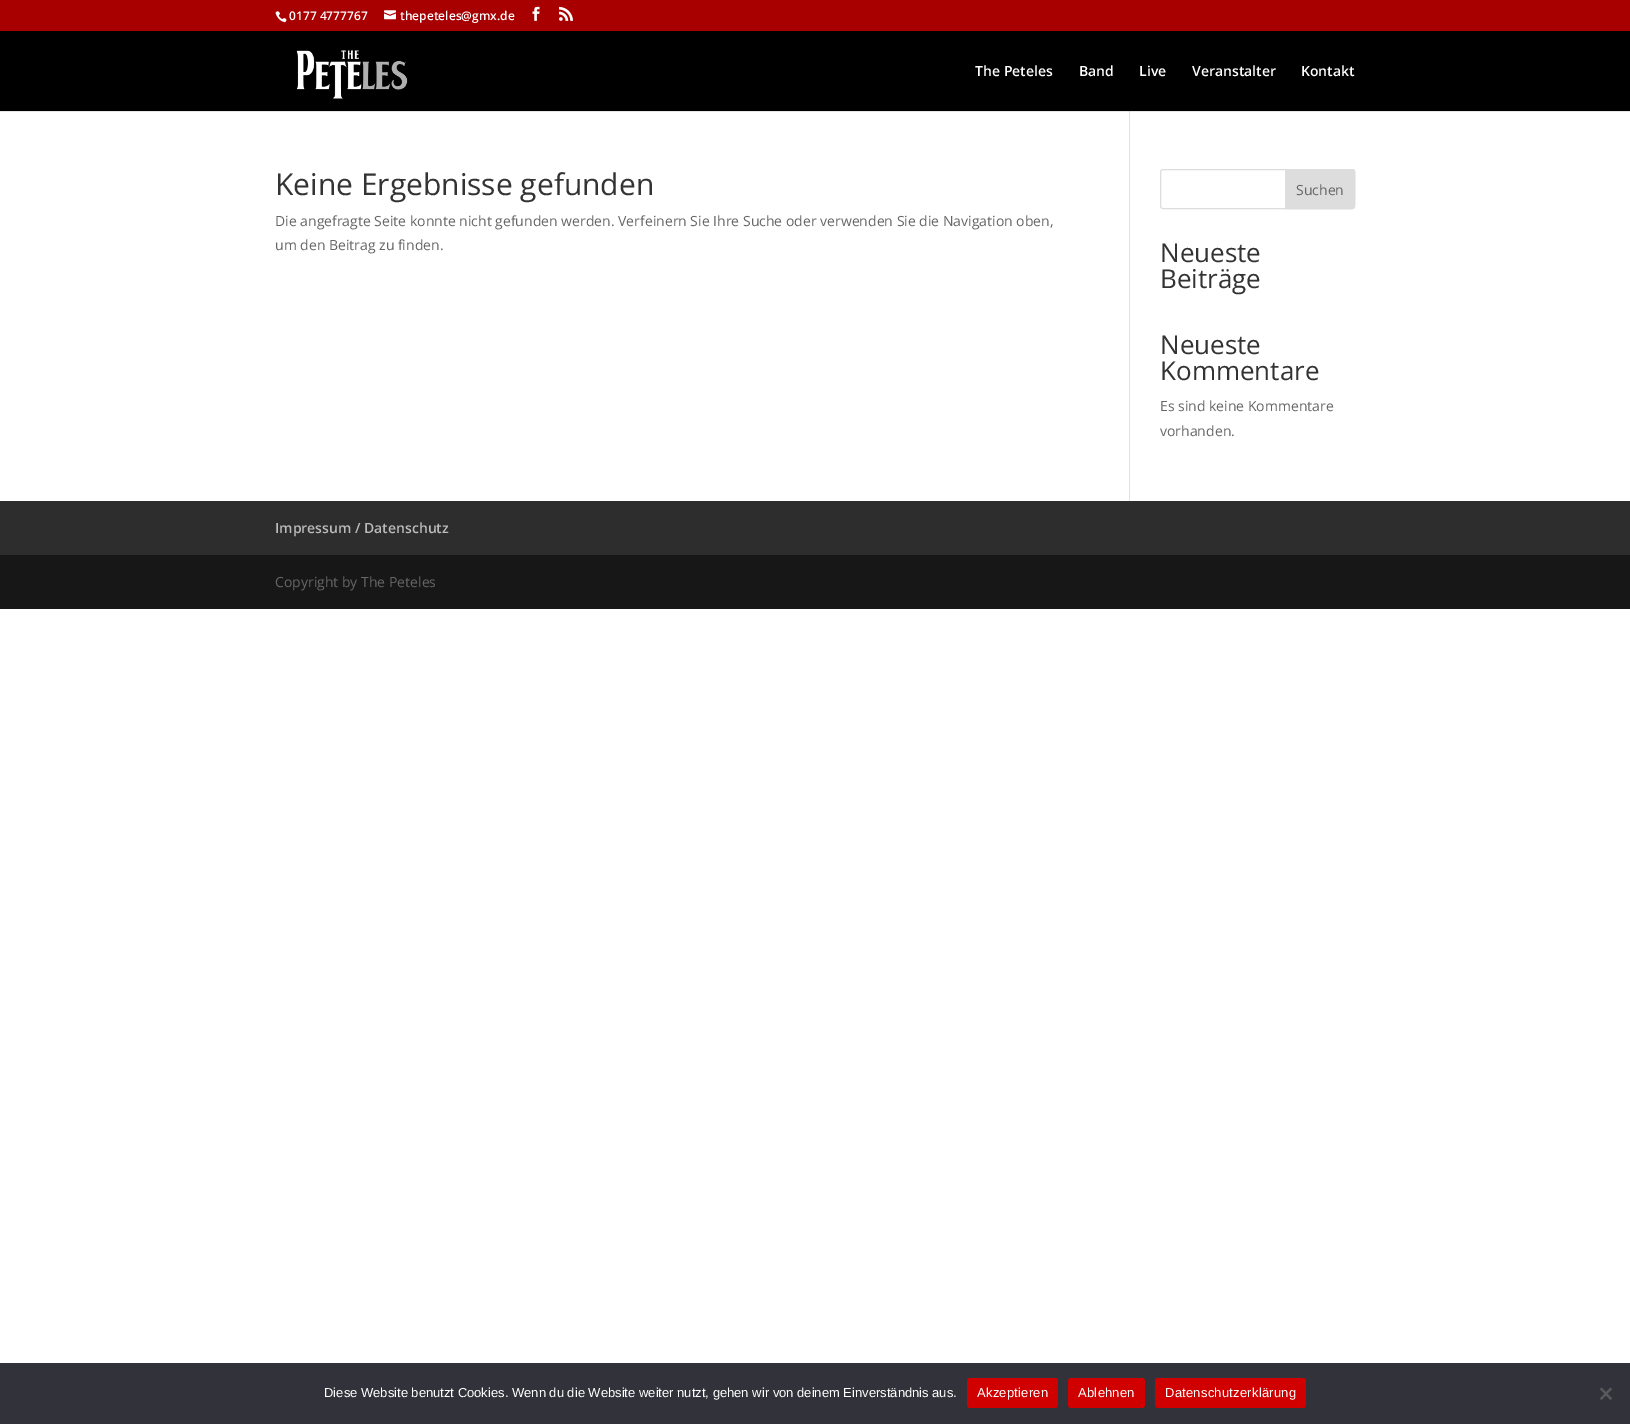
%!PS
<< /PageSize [1630 1424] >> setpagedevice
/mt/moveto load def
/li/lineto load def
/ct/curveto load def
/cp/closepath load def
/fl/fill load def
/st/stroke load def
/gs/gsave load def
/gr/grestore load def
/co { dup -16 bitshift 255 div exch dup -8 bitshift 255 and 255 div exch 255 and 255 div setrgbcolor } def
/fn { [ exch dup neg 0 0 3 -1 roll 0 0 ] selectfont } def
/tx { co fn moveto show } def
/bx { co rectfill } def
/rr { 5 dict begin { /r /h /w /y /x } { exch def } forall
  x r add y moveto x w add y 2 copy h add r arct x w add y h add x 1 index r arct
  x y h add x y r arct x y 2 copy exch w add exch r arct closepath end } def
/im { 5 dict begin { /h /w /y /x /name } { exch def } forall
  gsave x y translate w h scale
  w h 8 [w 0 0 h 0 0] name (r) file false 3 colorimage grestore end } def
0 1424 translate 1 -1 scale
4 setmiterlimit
0 0 1630 1424 16#FFFFFF bx
0 111 1630 1 16#E6E6E6 bx
0 0 1630 31 16#A80000 bx
(media/1.raw) 275 11 12 12 im
(media/2.raw) 384 10 12 10 im
(media/3.raw) 532 6 8 15 im
(media/4.raw) 559 6 14 15 im
0 31 1630 80 16#000000 bx
(media/5.raw) 296 50 112 49 im
1129 111 1 390 16#E2E2E2 bx
1129 111 1 1 16#CBCBCB bx
16#DDDDDD co
1160.5 169.5 194 39 2.5 rr st
1285.5 169.5 mt 1352 169.5 li 1353.5 169.5 1354.5 170.5 1354.5 172 ct 1354.5 206 li 1354.5 207.5 1353.5 208.5 1352 208.5 ct 1285.5 208.5 li cp gs fl gr
st
0 501 1630 54 16#2D2D2D bx
0 555 1630 54 16#171717 bx
0 1363 1630 61 16#32323A bx
16#D10000 co
967 1378 91 30 3 rr fl
1068 1378 77 30 3 rr fl
1155 1378 151 30 3 rr fl
16#59595D co
1610.5 1387.5 mt 1612 1389 li 1601.5 1400 li 1600 1398.5 li cp fl
1600 1389 mt 1601.5 1387.5 li 1612 1398.5 li 1610.5 1400 li cp fl
(0177 4777767) 289 20 /OpenSans-SemiBold 12 16#FFFFFF tx
(thepeteles@gmx.de) 400 20 /OpenSans-SemiBold 12 16#FFFFFF tx
(The Peteles) 975 76 /OpenSans-SemiBold 14 16#FFFFFF tx
(Band) 1079 76 /OpenSans-SemiBold 14 16#FFFFFF tx
(Live) 1139 76 /OpenSans-SemiBold 14 16#FFFFFF tx
(Veranstalter) 1192 76 /OpenSans-SemiBold 14 16#FFFFFF tx
(Kontakt) 1301 76 /OpenSans-SemiBold 14 16#FFFFFF tx
(Keine Ergebnisse gefunden) 275 195 /OpenSans-Regular 30 16#333333 tx
(Die angefragte Seite konnte nicht gefunden werden. Verfeinern Sie Ihre Suche oder verwenden Sie die Navigation oben,) 275 226 /OpenSans-Regular 14 16#666666 tx
(um den Beitrag zu finden.) 275 250 /OpenSans-Regular 14 16#666666 tx
(Suchen) 1296 195 /OpenSans-Regular 14 16#666666 tx
(Neueste) 1160 262 /OpenSans-Regular 26 16#333333 tx
(Beiträge) 1160 288 /OpenSans-Regular 26 16#333333 tx
(Neueste) 1160 354 /OpenSans-Regular 26 16#333333 tx
(Kommentare) 1160 380 /OpenSans-Regular 26 16#333333 tx
(Es sind keine Kommentare) 1160 411 /OpenSans-Regular 14 16#666666 tx
(vorhanden.) 1160 436 /OpenSans-Regular 14 16#666666 tx
(Impressum / Datenschutz) 275 533 /OpenSans-SemiBold 14 16#BBBBBB tx
(Copyright by The Peteles) 275 587 /OpenSans-Regular 14 16#666666 tx
(Diese Website benutzt Cookies. Wenn du die Website weiter nutzt, gehen wir von deinem Einverständnis aus.) 324 1397 /LiberationSans-Regular 13 16#FFFFFF tx
977 1397 mt .25 0 (Akzeptieren) ashow
1078 1397 mt .25 0 (Ablehnen) ashow
1165 1397 mt .25 0 (Datenschutzerklärung) ashow
showpage
